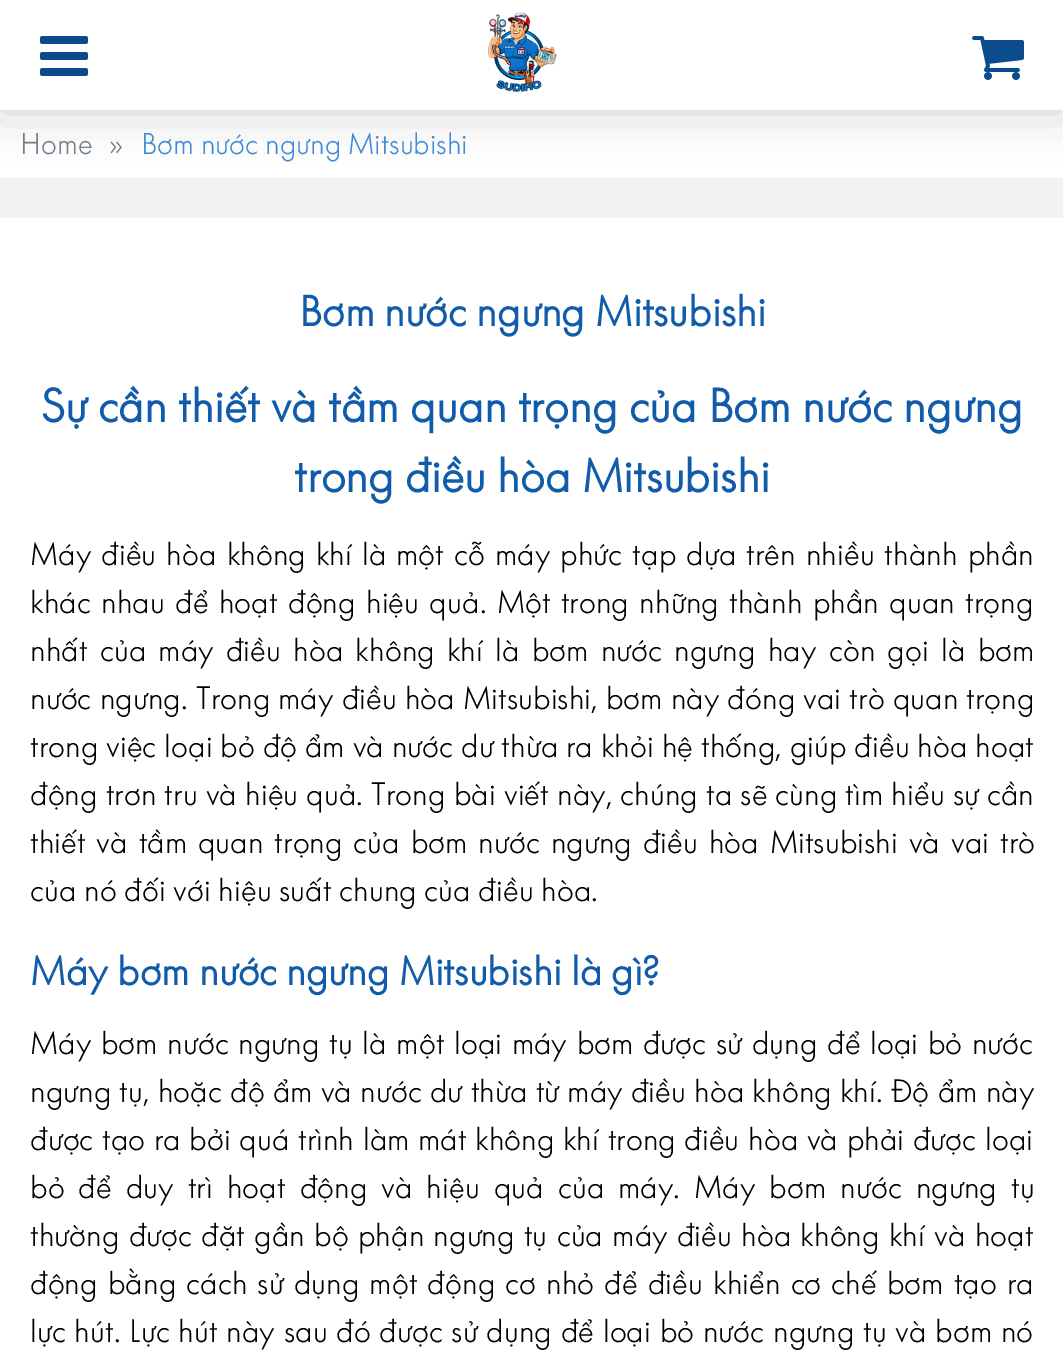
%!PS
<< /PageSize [1063 1356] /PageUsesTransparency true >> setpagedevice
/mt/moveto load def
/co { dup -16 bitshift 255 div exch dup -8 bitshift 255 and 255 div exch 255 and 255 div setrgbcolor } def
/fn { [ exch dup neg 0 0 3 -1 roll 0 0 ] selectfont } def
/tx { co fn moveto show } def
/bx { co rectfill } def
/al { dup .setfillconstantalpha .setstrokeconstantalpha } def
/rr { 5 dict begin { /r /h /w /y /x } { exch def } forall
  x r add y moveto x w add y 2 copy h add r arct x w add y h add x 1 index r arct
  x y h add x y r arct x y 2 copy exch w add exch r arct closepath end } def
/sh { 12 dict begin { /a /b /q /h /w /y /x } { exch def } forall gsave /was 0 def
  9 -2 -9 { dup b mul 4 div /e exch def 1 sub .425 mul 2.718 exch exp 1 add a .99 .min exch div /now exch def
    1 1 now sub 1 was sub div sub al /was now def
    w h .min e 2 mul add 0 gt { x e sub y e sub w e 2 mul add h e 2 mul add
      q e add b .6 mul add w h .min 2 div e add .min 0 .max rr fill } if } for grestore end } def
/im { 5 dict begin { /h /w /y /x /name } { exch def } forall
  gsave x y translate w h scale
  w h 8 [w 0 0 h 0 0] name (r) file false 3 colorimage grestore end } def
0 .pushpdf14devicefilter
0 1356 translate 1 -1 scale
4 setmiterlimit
0 0 1063 1356 16#F2F2F2 bx
0 110 1063 68 16#FFFFFF bx
16#000000 co
0 0 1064 110 0 25 .2 sh
0 0 1063 110 16#FFFFFF bx
(media/1.raw) 40 36 48 40 im
(media/2.raw) 488 12 69 80 im
(media/3.raw) 972 36 52 44 im
0 218 1063 1138 16#FFFFFF bx
(Home) 20 154 /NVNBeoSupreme-Light 28 16#707E8C tx
(») 109 154 /NVNBeoSupreme-Light 28 16#707E8C tx
(Bơm nước ngưng Mitsubishi) 141 154 /NVNBeoSupreme-Light 28 16#3E8AD6 tx
(Bơm nước ngưng Mitsubishi) 299 326 /NVNBeoSupreme-Bold 40 16#105CAA tx
(Sự cần thiết và tầm quan trọng của Bơm nước ngưng) 41 422 /NVNBeoSupreme-Bold 44 16#105CAA tx
(trong điều hòa Mitsubishi) 294 492 /NVNBeoSupreme-Bold 44 16#105CAA tx
/NVNBeoSupreme-Light 30 fn
16#000000 co
30 565 mt 2.4 0 32 (Máy điều hòa không khí là một cỗ máy phức tạp dựa trên nhiều thành phần) widthshow
30 613 mt 2.75 0 32 (khác nhau để hoạt động hiệu quả. Một trong những thành phần quan trọng) widthshow
30 661 mt 4.6 0 32 (nhất của máy điều hòa không khí là bơm nước ngưng hay còn gọi là bơm) widthshow
30 709 mt .5 0 32 (nước ngưng. Trong máy điều hòa Mitsubishi, bơm này đóng vai trò quan trọng) widthshow
30 757 mt .25 0 32 (trong việc loại bỏ độ ẩm và nước dư thừa ra khỏi hệ thống, giúp điều hòa hoạt) widthshow
30 805 mt .5 0 32 (động trơn tru và hiệu quả. Trong bài viết này, chúng ta sẽ cùng tìm hiểu sự cần) widthshow
30 853 mt 3.25 0 32 (thiết và tầm quan trọng của bơm nước ngưng điều hòa Mitsubishi và vai trò) widthshow
(của nó đối với hiệu suất chung của điều hòa.) 30 901 /NVNBeoSupreme-Light 30 16#000000 tx
(Máy bơm nước ngưng Mitsubishi là gì?) 30 985 /NVNBeoSupreme-Bold 38 16#105CAA tx
/NVNBeoSupreme-Light 30 fn
16#000000 co
30 1054 mt 2 0 32 (Máy bơm nước ngưng tụ là một loại máy bơm được sử dụng để loại bỏ nước) widthshow
30 1102 mt .6 0 32 (ngưng tụ, hoặc độ ẩm và nước dư thừa từ máy điều hòa không khí. Độ ẩm này) widthshow
30 1150 mt 1 0 32 (được tạo ra bởi quá trình làm mát không khí trong điều hòa và phải được loại) widthshow
30 1198 mt 6.4 0 32 (bỏ để duy trì hoạt động và hiệu quả của máy. Máy bơm nước ngưng tụ) widthshow
30 1246 mt 1.6 0 32 (thường được đặt gần bộ phận ngưng tụ của máy điều hòa không khí và hoạt) widthshow
30 1294 mt 2.5 0 32 (động bằng cách sử dụng một động cơ nhỏ để điều khiển cơ chế bơm tạo ra) widthshow
30 1342 mt 1.1 0 32 (lực hút. Lực hút này sau đó được sử dụng để loại bỏ nước ngưng tụ và bơm nó) widthshow
.poppdf14devicefilter showpage
